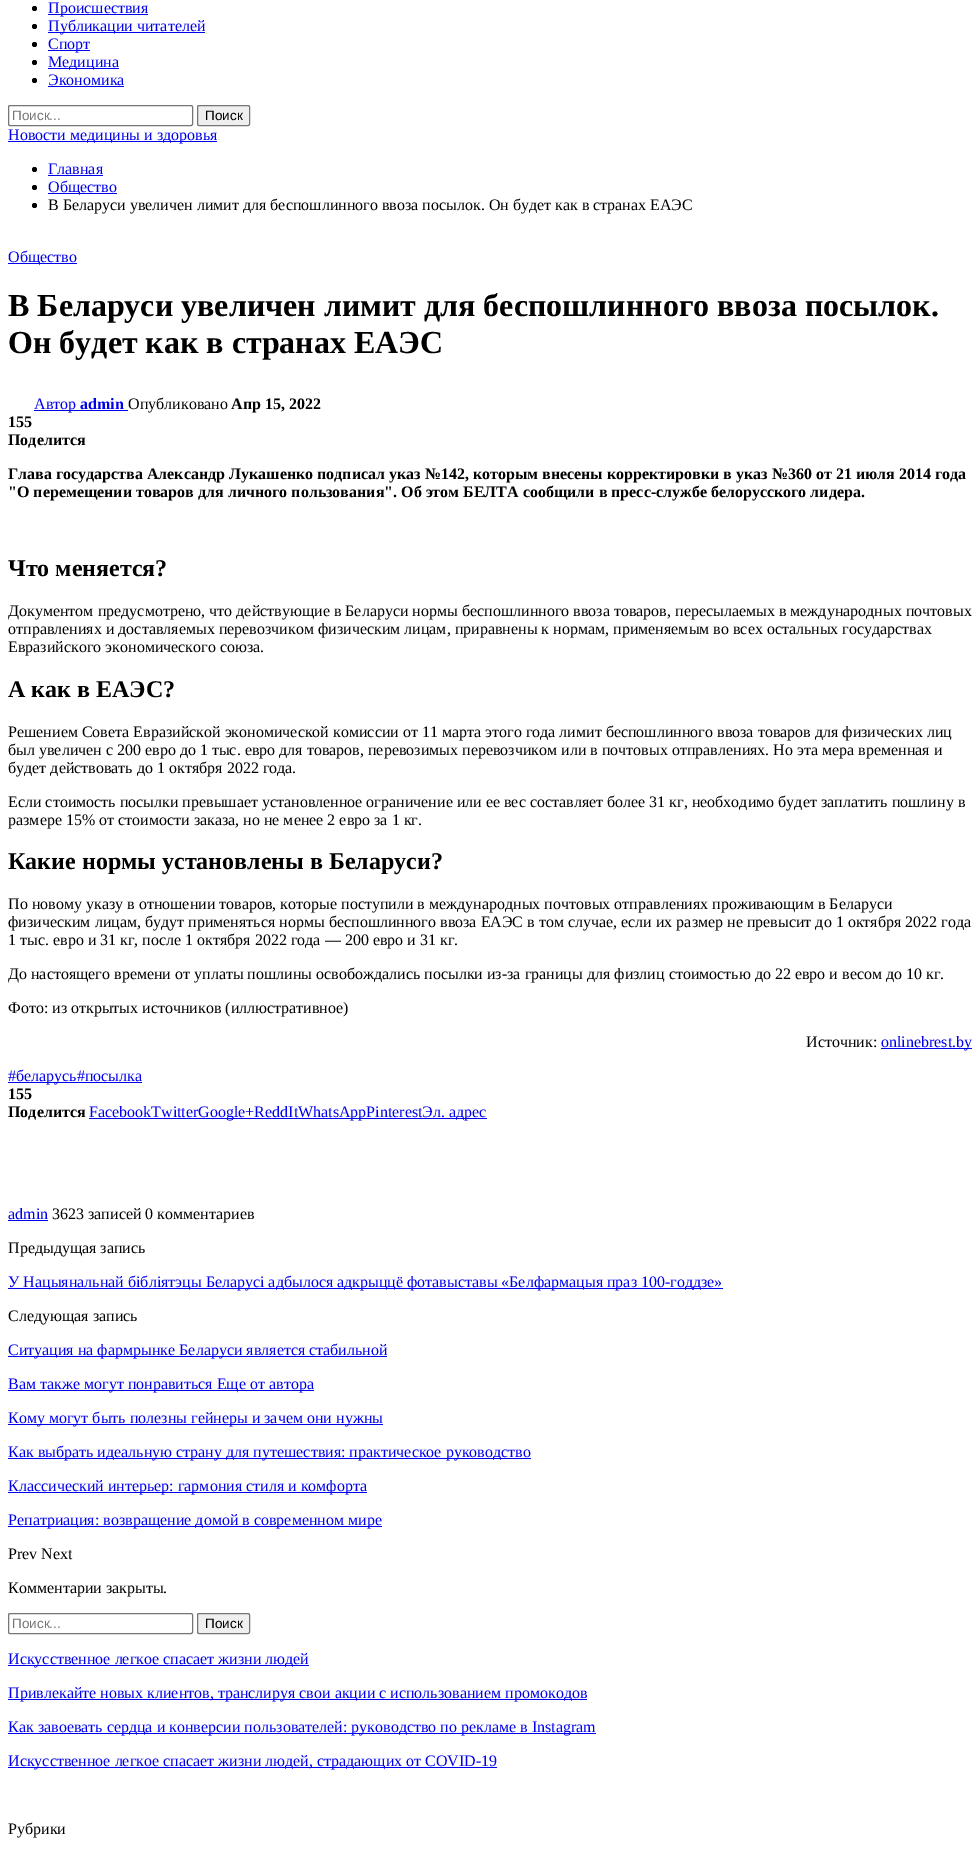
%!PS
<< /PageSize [980 1860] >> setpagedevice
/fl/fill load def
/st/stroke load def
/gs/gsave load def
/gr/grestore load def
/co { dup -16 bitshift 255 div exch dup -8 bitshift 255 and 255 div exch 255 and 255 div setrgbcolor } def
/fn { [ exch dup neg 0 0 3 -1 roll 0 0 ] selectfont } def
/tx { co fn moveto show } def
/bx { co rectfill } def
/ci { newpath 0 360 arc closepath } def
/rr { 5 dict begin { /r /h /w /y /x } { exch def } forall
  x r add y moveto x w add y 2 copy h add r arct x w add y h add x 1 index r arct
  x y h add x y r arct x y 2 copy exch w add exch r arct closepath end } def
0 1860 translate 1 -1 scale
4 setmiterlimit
0 0 980 1860 16#FFFFFF bx
16#000000 co
34.5 8.5 2.5 ci fl
48 14 100 1 16#0000EE bx
16#000000 co
34.5 26.5 2.5 ci fl
48 32 157 1 16#0000EE bx
16#000000 co
34.5 44.5 2.5 ci fl
48 50 42 1 16#0000EE bx
16#000000 co
34.5 62.5 2.5 ci fl
48 68 71 1 16#0000EE bx
16#000000 co
34.5 80.5 2.5 ci fl
48 86 76 1 16#0000EE bx
16#767676 co
8.5 105.5 184 20 1.5 rr st
16#EFEFEF co
197.5 105.5 52 20 1.5 rr gs fl gr
16#767676 co
st
8 141 209 1 16#0000EE bx
16#000000 co
34.5 169.5 2.5 ci fl
48 175 55 1 16#0000EE bx
16#000000 co
34.5 187.5 2.5 ci fl
48 193 69 1 16#0000EE bx
16#000000 co
34.5 205.5 2.5 ci fl
8 263 69 1 16#0000EE bx
34 410 94 1 16#0000EE bx
881 1048 91 1 16#0000EE bx
8 1082 134 1 16#0000EE bx
89 1118 209 1 16#0000EE bx
298 1118 189 1 16#0000EE bx
8 1220 40 1 16#0000EE bx
8 1288 715 1 16#0000EE bx
8 1356 379 1 16#0000EE bx
8 1390 306 1 16#0000EE bx
8 1424 375 1 16#0000EE bx
8 1458 523 1 16#0000EE bx
8 1492 359 1 16#0000EE bx
8 1526 374 1 16#0000EE bx
16#767676 co
8.5 1613.5 184 20 1.5 rr st
16#EFEFEF co
197.5 1613.5 52 20 1.5 rr gs fl gr
16#767676 co
st
8 1665 301 1 16#0000EE bx
8 1699 579 1 16#0000EE bx
8 1733 588 1 16#0000EE bx
8 1767 489 1 16#0000EE bx
(Происшествия) 48 13 /LiberationSerif-Regular 16 16#0000EE tx
(Публикации читателей) 48 31 /LiberationSerif-Regular 16 16#0000EE tx
(Спорт) 48 49 /LiberationSerif-Regular 16 16#0000EE tx
(Медицина) 48 67 /LiberationSerif-Regular 16 16#0000EE tx
(Экономика) 48 85 /LiberationSerif-Regular 16 16#0000EE tx
(Поиск...) 12 120 /LiberationSans-Regular 13.5 16#757575 tx
(Поиск) 205 120 /LiberationSans-Regular 13.5 16#000000 tx
(Новости медицины и здоровья) 8 140 /LiberationSerif-Regular 16 16#0000EE tx
(Главная) 48 174 /LiberationSerif-Regular 16 16#0000EE tx
(Общество) 48 192 /LiberationSerif-Regular 16 16#0000EE tx
(В Беларуси увеличен лимит для беспошлинного ввоза посылок. Он будет как в странах ЕАЭС) 48 210 /LiberationSerif-Regular 16 16#000000 tx
(Общество) 8 262 /LiberationSerif-Regular 16 16#0000EE tx
(В Беларуси увеличен лимит для беспошлинного ввоза посылок.) 8 316 /LiberationSerif-Bold 32 16#000000 tx
(Он будет как в странах ЕАЭС) 8 353 /LiberationSerif-Bold 32 16#000000 tx
(Автор) 34 409 /LiberationSerif-Regular 16 16#0000EE tx
(admin) 80 409 /LiberationSerif-Bold 16 16#0000EE tx
(Опубликовано) 128 409 /LiberationSerif-Regular 16 16#000000 tx
(Апр 15, 2022) 231 409 /LiberationSerif-Bold 16 16#000000 tx
(155) 8 427 /LiberationSerif-Bold 16 16#000000 tx
(Поделится) 8 445 /LiberationSerif-Bold 16 16#000000 tx
(Глава государства Александр Лукашенко подписал указ №142, которым внесены корректировки в указ №360 от 21 июля 2014 года) 8 479 /LiberationSerif-Bold 16 16#000000 tx
("О перемещении товаров для личного пользования". Об этом БЕЛТА сообщили в пресс-службе белорусского лидера.) 8 497 /LiberationSerif-Bold 16 16#000000 tx
(Что меняется?) 8 576 /LiberationSerif-Bold 24 16#000000 tx
(Документом предусмотрено, что действующие в Беларуси нормы беспошлинного ввоза товаров, пересылаемых в международных почтовых) 8 616 /LiberationSerif-Regular 16 16#000000 tx
(отправлениях и доставляемых перевозчиком физическим лицам, приравнены к нормам, применяемым во всех остальных государствах) 8 634 /LiberationSerif-Regular 16 16#000000 tx
(Евразийского экономического союза.) 8 652 /LiberationSerif-Regular 16 16#000000 tx
(А как в ЕАЭС?) 8 697 /LiberationSerif-Bold 24 16#000000 tx
(Решением Совета Евразийской экономической комиссии от 11 марта этого года лимит беспошлинного ввоза товаров для физических лиц) 8 737 /LiberationSerif-Regular 16 16#000000 tx
(был увеличен с 200 евро до 1 тыс. евро для товаров, перевозимых перевозчиком или в почтовых отправлениях. Но эта мера временная и) 8 755 /LiberationSerif-Regular 16 16#000000 tx
(будет действовать до 1 октября 2022 года.) 8 773 /LiberationSerif-Regular 16 16#000000 tx
(Если стоимость посылки превышает установленное ограничение или ее вес составляет более 31 кг, необходимо будет заплатить пошлину в) 8 807 /LiberationSerif-Regular 16 16#000000 tx
(размере 15% от стоимости заказа, но не менее 2 евро за 1 кг.) 8 825 /LiberationSerif-Regular 16 16#000000 tx
(Какие нормы установлены в Беларуси?) 8 869 /LiberationSerif-Bold 24 16#000000 tx
(По новому указу в отношении товаров, которые поступили в международных почтовых отправлениях проживающим в Беларуси) 8 909 /LiberationSerif-Regular 16 16#000000 tx
(физическим лицам, будут применяться нормы беспошлинного ввоза ЕАЭС в том случае, если их размер не превысит до 1 октября 2022 года) 8 927 /LiberationSerif-Regular 16 16#000000 tx
(1 тыс. евро и 31 кг, после 1 октября 2022 года — 200 евро и 31 кг.) 8 945 /LiberationSerif-Regular 16 16#000000 tx
(До настоящего времени от уплаты пошлины освобождались посылки из-за границы для физлиц стоимостью до 22 евро и весом до 10 кг.) 8 979 /LiberationSerif-Regular 16 16#000000 tx
(Фото: из открытых источников \(иллюстративное\)) 8 1013 /LiberationSerif-Regular 16 16#000000 tx
(Источник:) 806 1047 /LiberationSerif-Regular 16 16#000000 tx
(onlinebrest.by) 881 1047 /LiberationSerif-Regular 16 16#0000EE tx
(#беларусь#посылка) 8 1081 /LiberationSerif-Regular 16 16#0000EE tx
(155) 8 1099 /LiberationSerif-Bold 16 16#000000 tx
(Поделится) 8 1117 /LiberationSerif-Bold 16 16#000000 tx
(FacebookTwitterGoogle+ReddIt) 89 1117 /LiberationSerif-Regular 16 16#0000EE tx
(WhatsAppPinterestЭл. адрес) 298 1117 /LiberationSerif-Regular 16 16#0000EE tx
(admin) 8 1219 /LiberationSerif-Regular 16 16#0000EE tx
(3623 записей 0 комментариев) 52 1219 /LiberationSerif-Regular 16 16#000000 tx
(Предыдущая запись) 8 1253 /LiberationSerif-Regular 16 16#000000 tx
(У Нацыянальнай бібліятэцы Беларусі адбылося адкрыццё фотавыставы «Белфармацыя праз 100-годдзе») 8 1287 /LiberationSerif-Regular 16 16#0000EE tx
(Следующая запись) 8 1321 /LiberationSerif-Regular 16 16#000000 tx
(Ситуация на фармрынке Беларуси является стабильной) 8 1355 /LiberationSerif-Regular 16 16#0000EE tx
(Вам также могут понравиться Еще от автора) 8 1389 /LiberationSerif-Regular 16 16#0000EE tx
(Кому могут быть полезны гейнеры и зачем они нужны) 8 1423 /LiberationSerif-Regular 16 16#0000EE tx
(Как выбрать идеальную страну для путешествия: практическое руководство) 8 1457 /LiberationSerif-Regular 16 16#0000EE tx
(Классический интерьер: гармония стиля и комфорта) 8 1491 /LiberationSerif-Regular 16 16#0000EE tx
(Репатриация: возвращение домой в современном мире) 8 1525 /LiberationSerif-Regular 16 16#0000EE tx
(Prev Next) 8 1559 /LiberationSerif-Regular 16 16#000000 tx
(Комментарии закрыты.) 8 1593 /LiberationSerif-Regular 16 16#000000 tx
(Поиск...) 12 1628 /LiberationSans-Regular 13.5 16#757575 tx
(Поиск) 205 1628 /LiberationSans-Regular 13.5 16#000000 tx
(Искусственное легкое спасает жизни людей) 8 1664 /LiberationSerif-Regular 16 16#0000EE tx
(Привлекайте новых клиентов, транслируя свои акции с использованием промокодов) 8 1698 /LiberationSerif-Regular 16 16#0000EE tx
(Как завоевать сердца и конверсии пользователей: руководство по рекламе в Instagram) 8 1732 /LiberationSerif-Regular 16 16#0000EE tx
(Искусственное легкое спасает жизни людей, страдающих от COVID-19) 8 1766 /LiberationSerif-Regular 16 16#0000EE tx
(Рубрики) 8 1834 /LiberationSerif-Regular 16 16#000000 tx
showpage
